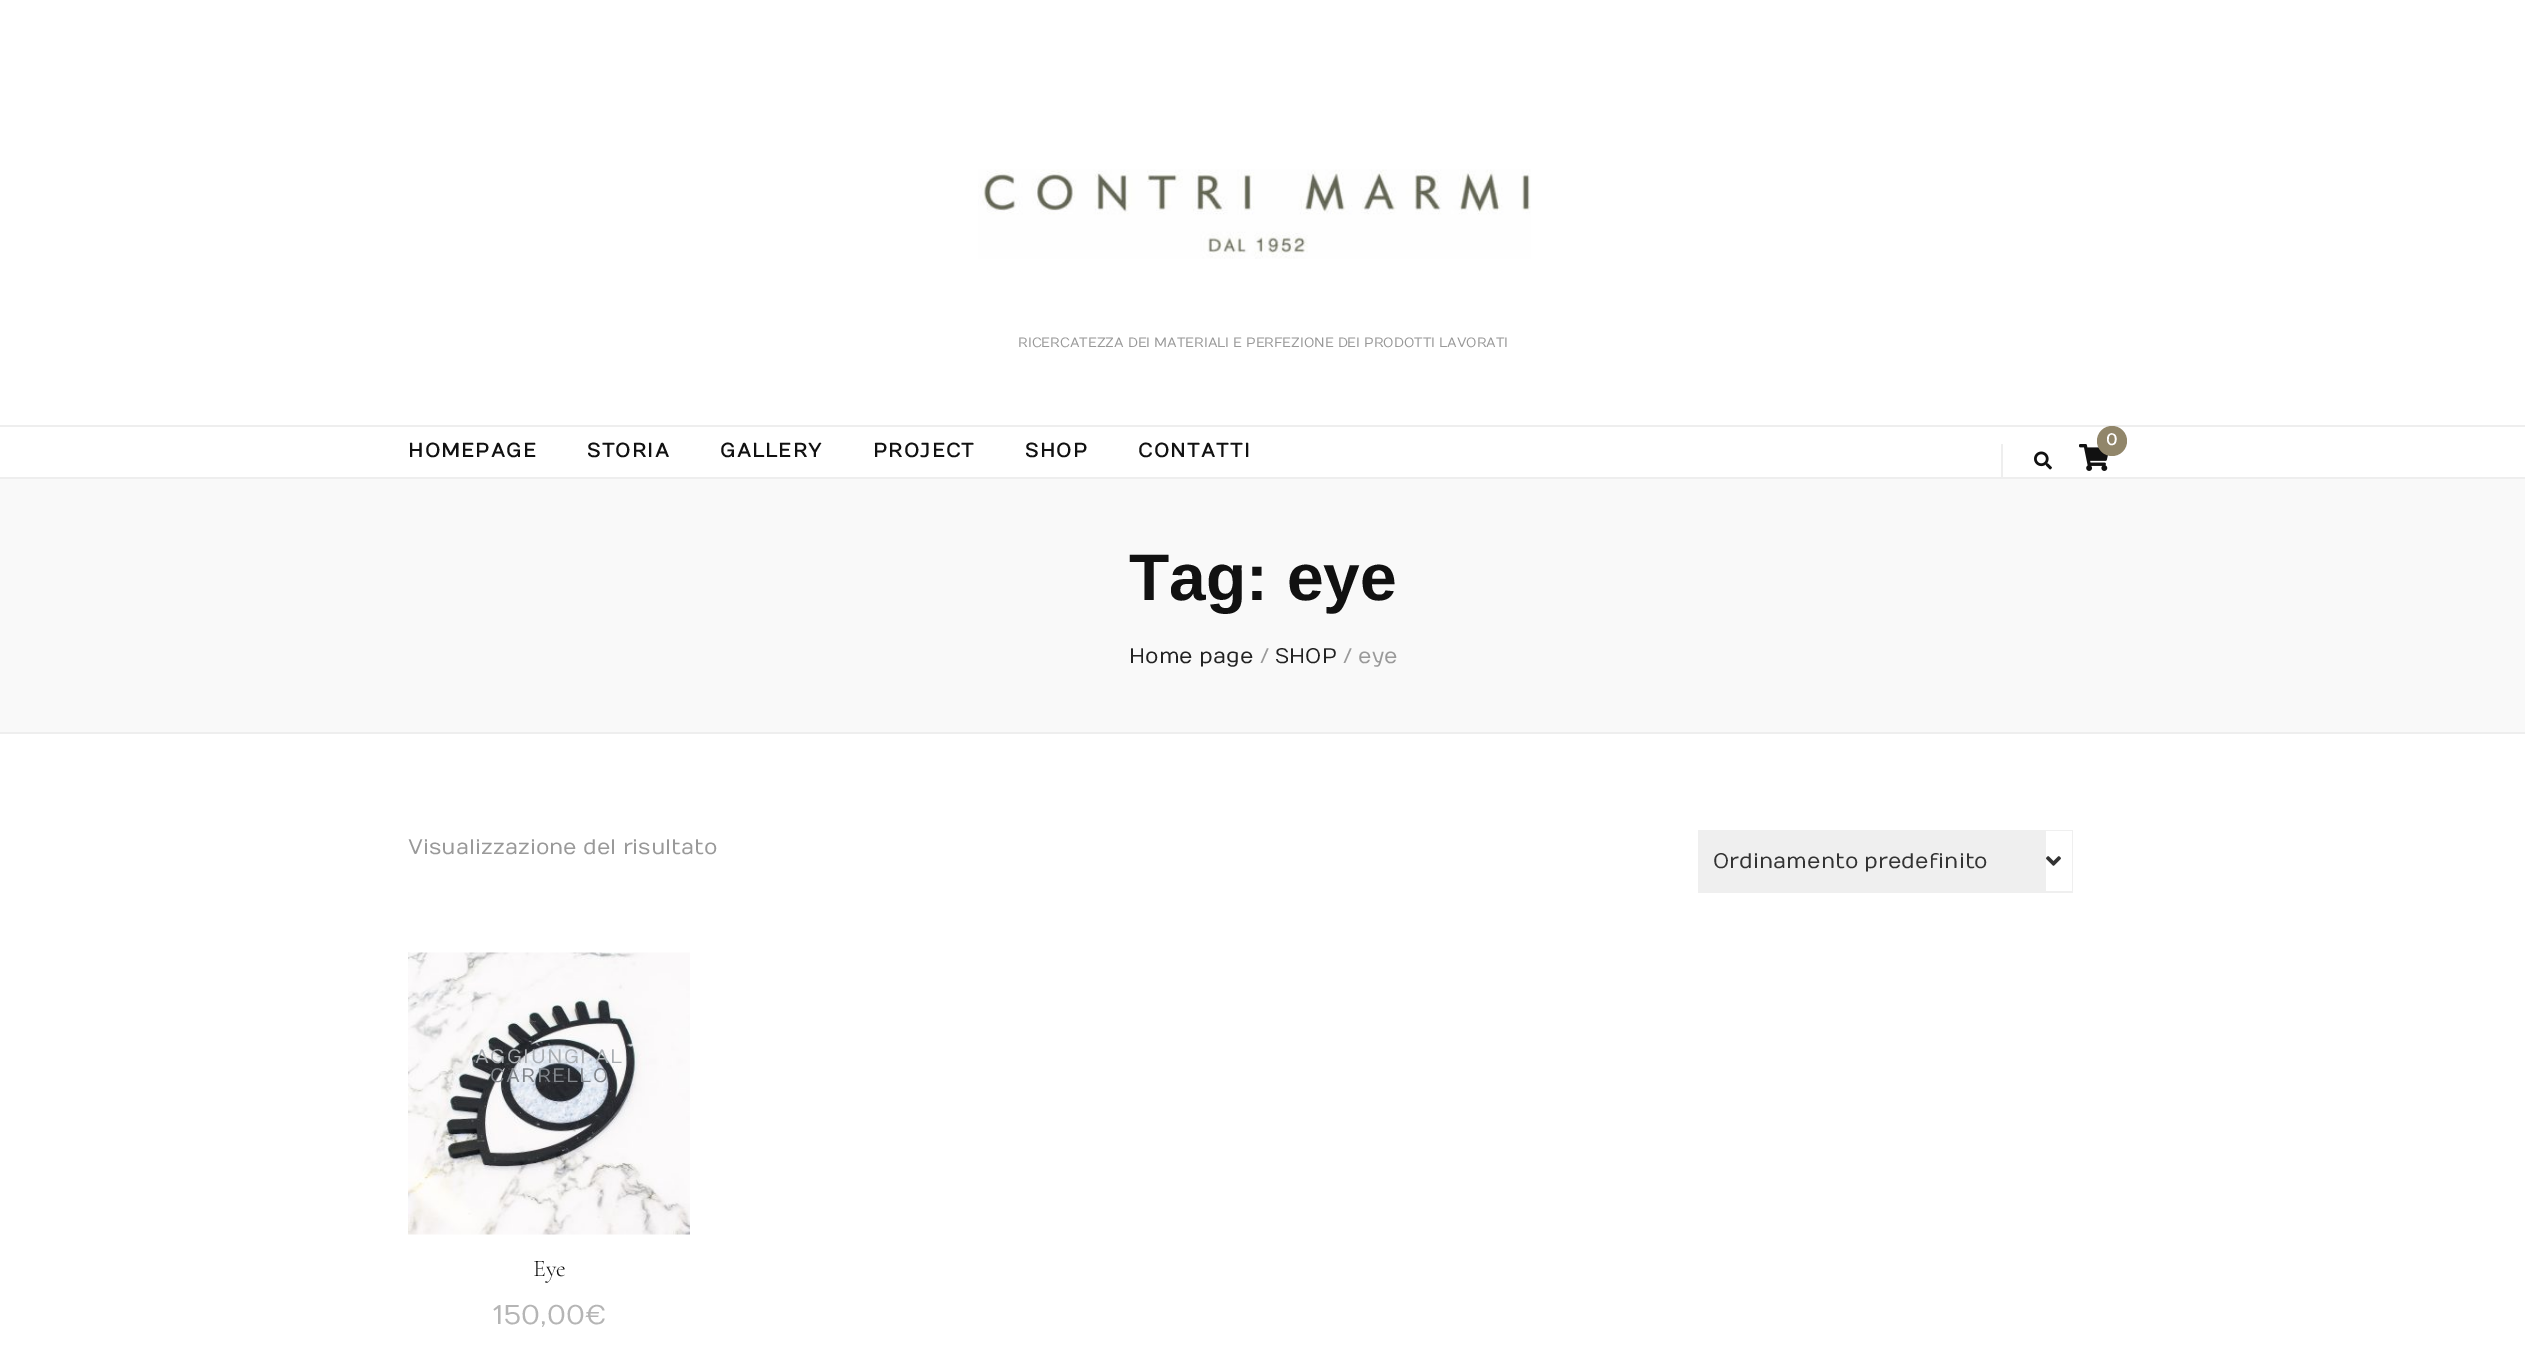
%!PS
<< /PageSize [2525 1348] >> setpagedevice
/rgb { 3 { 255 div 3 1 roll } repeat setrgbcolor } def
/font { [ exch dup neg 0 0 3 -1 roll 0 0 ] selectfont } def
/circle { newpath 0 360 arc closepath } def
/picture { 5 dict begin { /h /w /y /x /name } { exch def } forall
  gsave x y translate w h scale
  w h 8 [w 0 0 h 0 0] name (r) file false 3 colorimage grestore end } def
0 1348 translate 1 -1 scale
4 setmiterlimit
255 255 255 rgb
0 0 2525 1348 rectfill
(img/1.rgb) 978 169 553 90 picture
[
  [0 425 2525 2 238 238 238]
  [0 477 2525 2 238 238 238]
  [2001 444 2 33 238 238 238]
] { aload pop rgb rectfill } forall
(img/2.rgb) 2079 444 29 27 picture
145 134 106 rgb
2112 441 15 circle fill
(img/3.rgb) 2034 451 18 19 picture
[
  [0 479 2525 253 249 249 249]
  [0 732 2525 2 238 238 238]
  [1698 830 375 63 239 239 239]
  [2046 831 26 60 255 255 255]
] { aload pop rgb rectfill } forall
(img/4.rgb) 2046 856 15 10 picture
(img/5.rgb) 408 952 282 283 picture
/Numans-Regular 13.5 font
153 153 153 rgb
1018 347 moveto (RICERCATEZZA DEI MATERIALI E PERFEZIONE DEI PRODOTTI LAVORATI) show
/Numans-Bold 16 font
255 255 255 rgb
2106 445 moveto (0) show
/Numans-Bold 19.5 font
17 17 17 rgb
408 457 moveto 1.5 0 (HOMEPAGE) ashow
587 457 moveto 1.5 0 (STORIA) ashow
720 457 moveto 1.5 0 (GALLERY) ashow
873 457 moveto 1.5 0 (PROJECT) ashow
1025 457 moveto 1.5 0 (SHOP) ashow
1138 457 moveto 1.5 0 (CONTATTI) ashow
/LiberationSans-Bold 66 font
1129 600 moveto (Tag: eye) show
/Numans-Regular 21 font
34 34 34 rgb
1129 663 moveto (Home page) show
153 153 153 rgb
1260 663 moveto (/) show
34 34 34 rgb
1275 663 moveto (SHOP) show
153 153 153 rgb
1343 663 moveto (/ eye) show
408 854 moveto (Visualizzazione del risultato) show
51 51 51 rgb
1713 868 moveto (Ordinamento predefinito) show
/Numans-Regular 19.5 font
169 173 178 rgb
475 1063 moveto 1.5 0 (AGGIUNGI AL) ashow
130 134 140 rgb
490 1082 moveto 1.5 0 (CARRELLO) ashow
/Cormorant-Light 24 font
17 17 17 rgb
533 1276 moveto (Eye) show
/Numans-Regular 27 font
181 181 181 rgb
493 1324 moveto (150,00€) show
showpage
